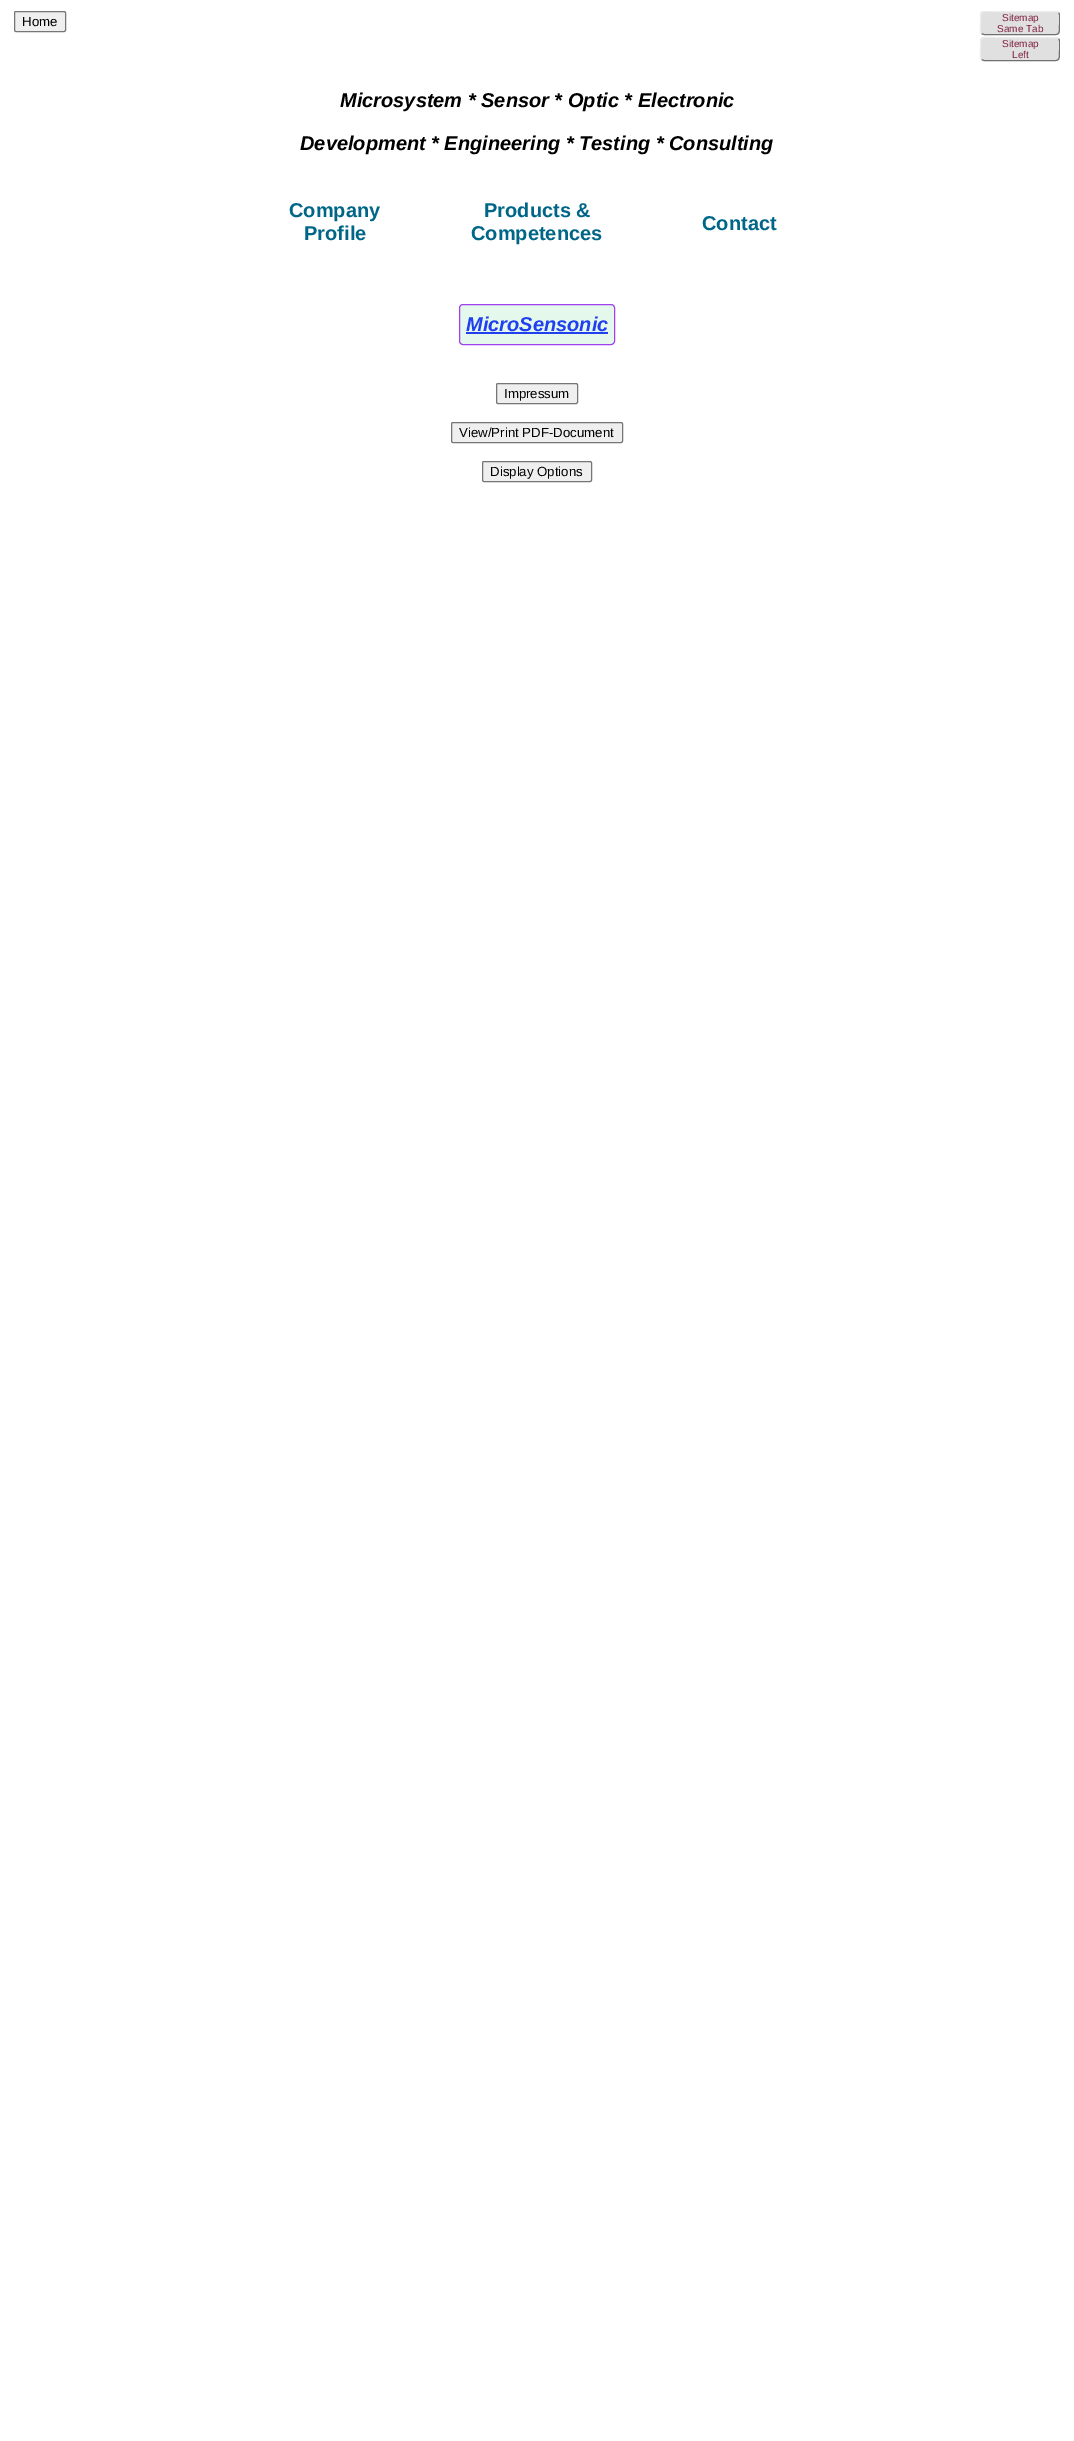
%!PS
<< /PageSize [1074 2441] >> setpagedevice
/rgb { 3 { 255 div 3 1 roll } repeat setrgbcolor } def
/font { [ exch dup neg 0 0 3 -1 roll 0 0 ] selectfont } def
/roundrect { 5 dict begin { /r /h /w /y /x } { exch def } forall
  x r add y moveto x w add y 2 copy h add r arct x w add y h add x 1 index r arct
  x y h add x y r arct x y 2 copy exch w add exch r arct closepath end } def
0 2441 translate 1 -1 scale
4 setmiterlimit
255 255 255 rgb
0 0 1074 2441 rectfill
239 239 239 rgb
14.5 11.5 51 20 1.5 roundrect gsave fill grestore
118 118 118 rgb
stroke
224 224 224 rgb
980 11 80 24 4 roundrect fill
gsave
963 11 97 96 rectclip
112 112 112 rgb
1058.5 12.5 moveto 1060.5 14.5 1059.5 20.5 1059.5 23 curveto 1059.5 37 1060 34.5 1044 34.5 curveto 984 34.5 lineto 981.5 33.5 lineto stroke
236 236 236 rgb
981.5 33.5 moveto 979.5 31.5 980.5 25.5 980.5 23 curveto 980.5 9 980 11.5 996 11.5 curveto 1056 11.5 lineto 1058.5 12.5 lineto stroke
grestore
980 37 80 24 4 roundrect fill
gsave
963 11 97 96 rectclip
112 112 112 rgb
1058.5 38.5 moveto 1060.5 40.5 1059.5 46.5 1059.5 49 curveto 1059.5 63 1060 60.5 1044 60.5 curveto 984 60.5 lineto 981.5 59.5 lineto stroke
grestore
236 236 236 rgb
981.5 59.5 moveto 979.5 57.5 980.5 51.5 980.5 49 curveto 980.5 35 980 37.5 996 37.5 curveto 1056 37.5 lineto 1058.5 38.5 lineto stroke
228 248 236 rgb
459.5 304.5 155 40 3.5 roundrect gsave fill grestore
160 64 240 rgb
stroke
32 64 240 rgb
466 332 142 2 rectfill
239 239 239 rgb
496.5 383.5 81 20 1.5 roundrect gsave fill grestore
118 118 118 rgb
stroke
239 239 239 rgb
451.5 422.5 171 20 1.5 roundrect gsave fill grestore
118 118 118 rgb
stroke
239 239 239 rgb
482.5 461.5 109 20 1.5 roundrect gsave fill grestore
118 118 118 rgb
stroke
/LiberationSans-Regular 13.25 font
0 0 0 rgb
22 26 moveto (Home) show
/LiberationSans-Regular 10 font
128 32 64 rgb
[
  [(Sitemap) 1002 21]
  [(Same Tab) 997 32]
  [(Sitemap) 1002 47]
  [(Left) 1012 58]
] { aload pop moveto show } forall
/LiberationSans-BoldItalic 20 font
0 0 0 rgb
340 107 moveto (Microsystem * Sensor * Optic * Electronic) show
300 150 moveto (Development * Engineering * Testing * Consulting) show
/LiberationSans-Bold 20 font
0 102 136 rgb
[
  [(Company) 289 217]
  [(Profile) 304 240]
  [(Products &) 484 217]
  [(Competences) 471 240]
  [(Contact) 702 230]
] { aload pop moveto show } forall
/LiberationSans-BoldItalic 20 font
32 64 240 rgb
466 331 moveto (MicroSensonic) show
/LiberationSans-Regular 13.25 font
0 0 0 rgb
[
  [(Impressum) 504 398]
  [(View/Print PDF-Document) 459 437]
  [(Display Options) 490 476]
] { aload pop moveto show } forall
showpage
